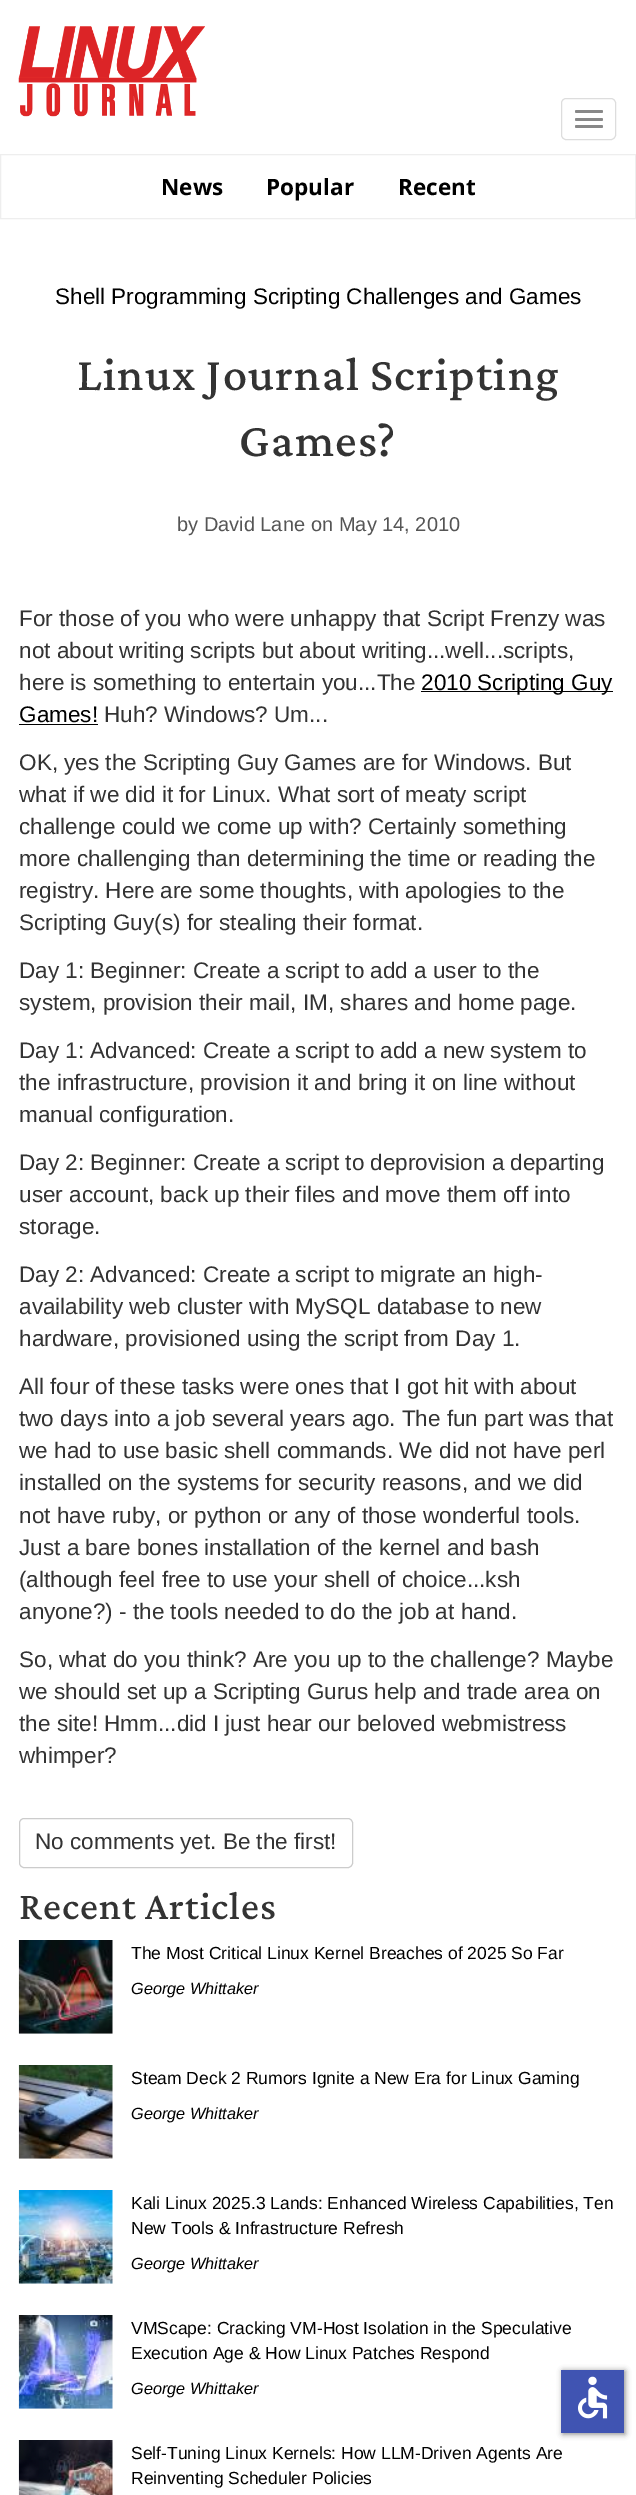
%!PS
<< /PageSize [636 2495] /PageUsesTransparency true >> setpagedevice
/rgb { 3 { 255 div 3 1 roll } repeat setrgbcolor } def
/font { [ exch dup neg 0 0 3 -1 roll 0 0 ] selectfont } def
/alpha { dup .setfillconstantalpha .setstrokeconstantalpha } def
/roundrect { 5 dict begin { /r /h /w /y /x } { exch def } forall
  x r add y moveto x w add y 2 copy h add r arct x w add y h add x 1 index r arct
  x y h add x y r arct x y 2 copy exch w add exch r arct closepath end } def
/shadow { 12 dict begin { /a /b /q /h /w /y /x } { exch def } forall gsave /was 0 def
  9 -2 -9 { dup b mul 4 div /e exch def 1 sub .425 mul 2.718 exch exp 1 add a .99 .min exch div /now exch def
    1 1 now sub 1 was sub div sub alpha /was now def
    w h .min e 2 mul add 0 gt { x e sub y e sub w e 2 mul add h e 2 mul add
      q e add b .6 mul add w h .min 2 div e add .min 0 .max roundrect fill } if } for grestore end } def
/picture { 5 dict begin { /h /w /y /x /name } { exch def } forall
  gsave x y translate w h scale
  w h 8 [w 0 0 h 0 0] name (r) file false 3 colorimage grestore end } def
0 .pushpdf14devicefilter
0 2495 translate 1 -1 scale
4 setmiterlimit
255 255 255 rgb
0 0 636 2495 rectfill
(img/1.rgb) 18 26 187 91 picture
238 238 238 rgb
0.5 154.5 635 64 rectstroke
221 221 221 rgb
561.5 98.5 54 41 4.5 roundrect stroke
136 136 136 rgb
575 110 28 3 1.5 roundrect fill
575 118 28 3 1.5 roundrect fill
575 125 28 3 1.5 roundrect fill
0 0 0 rgb
421 691 192 1 rectfill
19 724 79 1 rectfill
204 204 204 rgb
19.5 1818.5 333 49 4.5 roundrect stroke
(img/2.rgb) 18 1940 95 94 picture
(img/3.rgb) 18 2065 95 94 picture
(img/4.rgb) 18 2190 95 94 picture
(img/5.rgb) 18 2315 95 94 picture
(img/6.rgb) 18 2440 95 55 picture
0 0 0 rgb
563 2371 62 63 0 3 0.5 shadow
64 84 178 rgb
561 2370 63 63 rectfill
(img/7.rgb) 578 2376 30 43 picture
/OpenSans-Bold 22.5 font
0 0 0 rgb
[
  [(News) 161 195]
  [(Popular) 266 195]
  [(Recent) 398 195]
] { aload pop moveto show } forall
/LiberationSans-Regular 22.5 font
55 304 moveto (Shell Programming Scripting Challenges and Games) show
/Lateef-Regular 60 font
51 51 51 rgb
77 390 moveto 1.2 0 (Linux Journal Scripting) ashow
239 456 moveto 1.2 0 (Games?) ashow
/LiberationSans-Regular 20 font
85 85 85 rgb
177 531 moveto (by David Lane) show
311 531 moveto (on May 14, 2010) show
/LiberationSans-Regular 22.5 font
51 51 51 rgb
[
  [(For those of you who were unhappy that Script Frenzy was) 19 626]
  [(not about writing scripts but about writing...well...scripts,) 19 658]
  [(here is something to entertain you...The) 19 690]
] { aload pop moveto show } forall
0 0 0 rgb
421 690 moveto (2010 Scripting Guy) show
19 722 moveto (Games!) show
51 51 51 rgb
[
  [(Huh? Windows? Um...) 104 722]
  [(OK, yes the Scripting Guy Games are for Windows. But) 19 770]
  [(what if we did it for Linux. What sort of meaty script) 19 802]
  [(challenge could we come up with? Certainly something) 19 834]
  [(more challenging than determining the time or reading the) 19 866]
  [(registry. Here are some thoughts, with apologies to the) 19 898]
  [(Scripting Guy\(s\) for stealing their format.) 19 930]
  [(Day 1: Beginner: Create a script to add a user to the) 19 978]
  [(system, provision their mail, IM, shares and home page.) 19 1010]
  [(Day 1: Advanced: Create a script to add a new system to) 19 1058]
  [(the infrastructure, provision it and bring it on line without) 19 1090]
  [(manual configuration.) 19 1122]
  [(Day 2: Beginner: Create a script to deprovision a departing) 19 1170]
  [(user account, back up their files and move them off into) 19 1202]
  [(storage.) 19 1234]
  [(Day 2: Advanced: Create a script to migrate an high-) 19 1282]
  [(availability web cluster with MySQL database to new) 19 1314]
  [(hardware, provisioned using the script from Day 1.) 19 1346]
  [(All four of these tasks were ones that I got hit with about) 19 1394]
  [(two days into a job several years ago. The fun part was that) 19 1426]
  [(we had to use basic shell commands. We did not have perl) 19 1458]
  [(installed on the systems for security reasons, and we did) 19 1490]
  [(not have ruby, or python or any of those wonderful tools.) 19 1523]
  [(Just a bare bones installation of the kernel and bash) 19 1555]
  [(\(although feel free to use your shell of choice...ksh) 19 1587]
  [(anyone?\) - the tools needed to do the job at hand.) 19 1619]
  [(So, what do you think? Are you up to the challenge? Maybe) 19 1667]
  [(we should set up a Scripting Gurus help and trade area on) 19 1699]
  [(the site! Hmm...did I just hear our beloved webmistress) 19 1731]
  [(whimper?) 19 1763]
  [(No comments yet. Be the first!) 35 1849]
] { aload pop moveto show } forall
/Lateef-Regular 50 font
19 1919 moveto 1 0 (Recent Articles) ashow
/LiberationSans-Regular 17.5 font
0 0 0 rgb
131 1959 moveto (The Most Critical Linux Kernel Breaches of 2025 So Far) show
/LiberationSans-Italic 16.25 font
131 1994 moveto (George Whittaker) show
/LiberationSans-Regular 17.5 font
131 2084 moveto (Steam Deck 2 Rumors Ignite a New Era for Linux Gaming) show
/LiberationSans-Italic 16.25 font
131 2119 moveto (George Whittaker) show
/LiberationSans-Regular 17.5 font
131 2209 moveto (Kali Linux 2025.3 Lands: Enhanced Wireless Capabilities, Ten) show
131 2234 moveto (New Tools & Infrastructure Refresh) show
/LiberationSans-Italic 16.25 font
131 2269 moveto (George Whittaker) show
/LiberationSans-Regular 17.5 font
131 2334 moveto (VMScape: Cracking VM-Host Isolation in the Speculative) show
131 2359 moveto (Execution Age & How Linux Patches Respond) show
/LiberationSans-Italic 16.25 font
131 2394 moveto (George Whittaker) show
/LiberationSans-Regular 17.5 font
131 2459 moveto (Self-Tuning Linux Kernels: How LLM-Driven Agents Are) show
131 2484 moveto (Reinventing Scheduler Policies) show
.poppdf14devicefilter showpage
